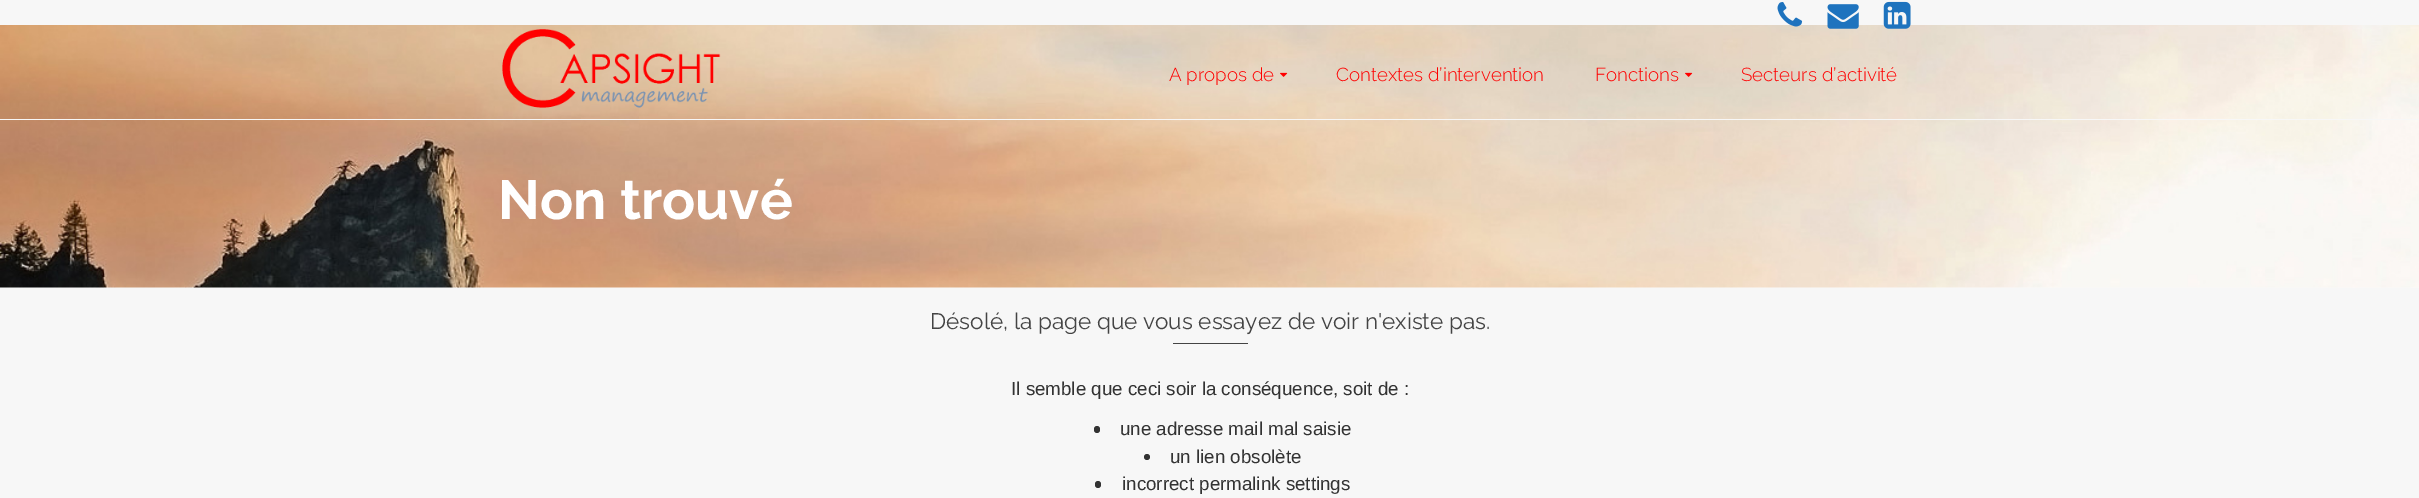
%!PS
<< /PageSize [2419 498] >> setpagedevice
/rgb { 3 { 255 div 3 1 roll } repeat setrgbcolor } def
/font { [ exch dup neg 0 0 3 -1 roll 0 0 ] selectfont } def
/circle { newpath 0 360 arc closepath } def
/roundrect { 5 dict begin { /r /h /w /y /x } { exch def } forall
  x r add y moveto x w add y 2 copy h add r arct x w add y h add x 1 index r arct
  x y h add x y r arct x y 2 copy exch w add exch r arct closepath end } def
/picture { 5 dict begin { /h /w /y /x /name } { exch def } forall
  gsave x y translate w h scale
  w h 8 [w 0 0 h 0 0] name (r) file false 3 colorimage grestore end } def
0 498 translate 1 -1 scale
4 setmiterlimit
247 247 247 rgb
0 0 2419 498 rectfill
(img/7.rgb) 0 25 2419 263 picture
0 119 2419 1 rectfill
(img/1.rgb) 1777 2 26 25 picture
(img/2.rgb) 1827 4 32 25 picture
(img/3.rgb) 1883 1 28 28 picture
(img/4.rgb) 502 29 219 79 picture
(img/5.rgb) 1280 72 8 5 picture
(img/6.rgb) 1685 72 8 5 picture
68 68 68 rgb
1173 343 75 1 rectfill
51 51 51 rgb
1094 426 6 7 3 roundrect fill
1147 457 3 circle fill
1095 481 6 7 3 roundrect fill
/Raleway-Light 18.75 font
255 0 0 rgb
[
  [(A propos de) 1169 81]
  [(Contextes d’intervention) 1336 81]
  [(Fonctions) 1595 81]
  [(Secteurs d’activité) 1741 81]
] { aload pop moveto show } forall
/Raleway-Bold 55 font
255 255 255 rgb
498 219 moveto (Non trouvé) show
/Raleway-Regular 22.5 font
68 68 68 rgb
930 329 moveto (Désolé, la page que vous essayez de voir n'existe pas.) show
/LiberationSans-Regular 18.75 font
51 51 51 rgb
[
  [(Il semble que ceci soir la conséquence, soit de :) 1011 395]
  [(une adresse mail mal saisie) 1120 435]
  [(un lien obsolète) 1170 463]
  [(incorrect permalink settings) 1122 490]
] { aload pop moveto show } forall
showpage
